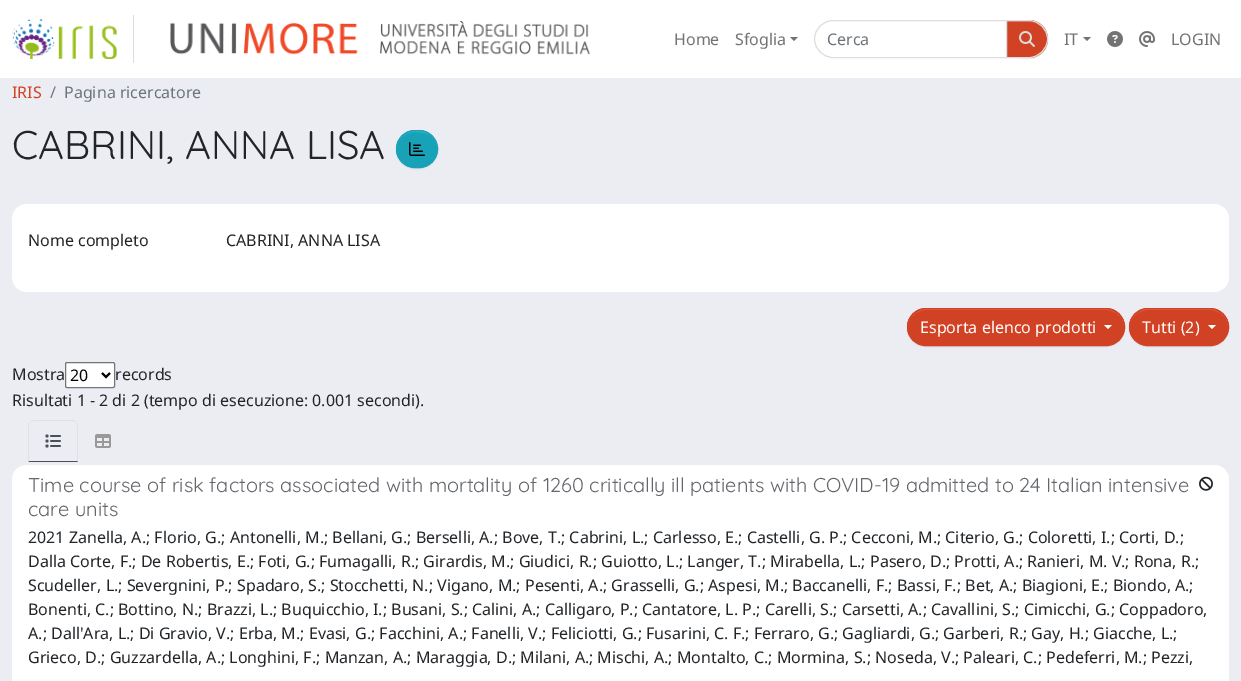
%!PS
<< /PageSize [1241 681] /PageUsesTransparency true >> setpagedevice
/rgb { 3 { 255 div 3 1 roll } repeat setrgbcolor } def
/font { [ exch dup neg 0 0 3 -1 roll 0 0 ] selectfont } def
/alpha { dup .setfillconstantalpha .setstrokeconstantalpha } def
/roundrect { 5 dict begin { /r /h /w /y /x } { exch def } forall
  x r add y moveto x w add y 2 copy h add r arct x w add y h add x 1 index r arct
  x y h add x y r arct x y 2 copy exch w add exch r arct closepath end } def
/shadow { 12 dict begin { /a /b /q /h /w /y /x } { exch def } forall gsave /was 0 def
  9 -2 -9 { dup b mul 4 div /e exch def 1 sub .425 mul 2.718 exch exp 1 add a .99 .min exch div /now exch def
    1 1 now sub 1 was sub div sub alpha /was now def
    w h .min e 2 mul add 0 gt { x e sub y e sub w e 2 mul add h e 2 mul add
      q e add b .6 mul add w h .min 2 div e add .min 0 .max roundrect fill } if } for grestore end } def
/picture { 5 dict begin { /h /w /y /x /name } { exch def } forall
  gsave x y translate w h scale
  w h 8 [w 0 0 h 0 0] name (r) file false 3 colorimage grestore end } def
0 .pushpdf14devicefilter
0 681 translate 1 -1 scale
4 setmiterlimit
236 237 242 rgb
0 0 1241 681 rectfill
255 255 255 rgb
0 0 1241 78 rectfill
221 221 221 rgb
133 15 1 48 rectfill
(img/1.rgb) 12 19 105 40 picture
(img/2.rgb) 170 21 421 34 picture
115 115 115 rgb
790 37 moveto 798 37 lineto 794 41 lineto closepath fill
221 221 221 rgb
833 20.5 moveto 1006.5 20.5 lineto 1006.5 57.5 lineto 833 57.5 lineto 823 57.5 814.5 49 814.5 39 curveto 814.5 29 823 20.5 833 20.5 curveto closepath stroke
0 0 0 rgb
1006 21 42 38 19 0.5 0.07 shadow
209 65 36 rgb
1006 20 moveto 1029 20 lineto 1039.5 20 1048 28.5 1048 39 curveto 1048 49.5 1039.5 58 1029 58 curveto 1006 58 lineto closepath fill
216 94 69 rgb
1007 22 moveto 1029 22 lineto 1039 22 1047 30 1047 39 curveto 1047 31 1041 23 1033 21 curveto 1007 21 lineto closepath fill
221 221 221 rgb
1006.5 20.5 moveto 1029 20.5 lineto 1039 20.5 1047.5 29 1047.5 39 curveto 1047.5 49 1039 57.5 1029 57.5 curveto 1006.5 57.5 lineto closepath stroke
(img/3.rgb) 1019 31 16 16 picture
115 115 115 rgb
1083 37 moveto 1091 37 lineto 1087 41 lineto closepath fill
(img/4.rgb) 1107 31 16 16 picture
(img/5.rgb) 1139 31 16 16 picture
0 0 0 rgb
396 131 42 38 19 0.5 0.07 shadow
23 162 184 rgb
396 130 42 38 19 roundrect fill
58 176 195 rgb
415 132 moveto 425 132 434 134 437 146 curveto 433 123 394 127 397 151 curveto 396 142 403 132 415 132 curveto closepath fill
23 162 184 rgb
396.5 130.5 41 37 18.5 roundrect stroke
(img/6.rgb) 409 142 16 14 picture
255 255 255 rgb
12 204 1217 88 15 roundrect fill
0 0 0 rgb
907 309 218 38 19 0.5 0.07 shadow
209 65 36 rgb
907 308 218 38 19 roundrect fill
0.15 alpha
255 255 255 rgb
926 310 moveto 1106 310 lineto 1116 310 1124 318 1124 327 curveto 1125 302 1090 309 1076 309 curveto 956 309 lineto 942 309 907 302 908 327 curveto 908 318 916 310 926 310 curveto closepath fill
1 alpha
209 65 36 rgb
907.5 308.5 217 37 18.5 roundrect stroke
255 255 255 rgb
1104 325 moveto 1112 325 lineto 1108 329 lineto closepath fill
0 0 0 rgb
1129 309 100 38 19 0.5 0.07 shadow
209 65 36 rgb
1129 308 100 38 19 roundrect fill
216 94 69 rgb
1148 310 moveto 1210 310 lineto 1220 310 1228 318 1228 327 curveto 1228 319 1222 311 1214 309 curveto 1200 309 lineto 1144 309 lineto 1136 311 1130 319 1130 327 curveto 1130 318 1138 310 1148 310 curveto closepath fill
209 65 36 rgb
1129.5 308.5 99 37 18.5 roundrect stroke
255 255 255 rgb
1208 325 moveto 1216 325 lineto 1212 329 lineto closepath fill
65.5 362.5 49 25 1.5 roundrect gsave fill grestore
118 118 118 rgb
stroke
0 0 0 rgb
2 setlinewidth
102 373 moveto 106 377 lineto 110 373 lineto stroke
222 226 230 rgb
34 420 moveto 32 420 31 421 30 422 curveto 31 422 32 421 34 421 curveto 72 421 lineto 74 421 75 422 76 422 curveto 75 421 74 420 72 420 curveto closepath 78 462 moveto 78 426 lineto 78 424 77 423 76 422 curveto 76 423 77 424 77 426 curveto 77 461 lineto closepath fill
73 80 87 rgb
78 462 moveto 77 461 lineto 29 461 lineto 28 462 lineto closepath fill
222 226 230 rgb
28 462 moveto 29 461 lineto 29 426 lineto 29 424 30 423 30 422 curveto 29 423 28 424 28 426 curveto closepath fill
(img/7.rgb) 45 434 16 14 picture
(img/8.rgb) 95 434 16 14 picture
255 255 255 rgb
27 465 moveto 1214 465 lineto 1222.5 465 1229 471.5 1229 480 curveto 1229 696 lineto 12 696 lineto 12 480 lineto 12 471.5 18.5 465 27 465 curveto closepath fill
(img/9.rgb) 1199 476 14 15 picture
/NotoSans-Regular 16 font
115 115 115 rgb
674 45 moveto (Home) show
735 45 moveto (Sfoglia) show
108 117 125 rgb
827 45 moveto (Cerca) show
115 115 115 rgb
1064 45 moveto (IT) show
1171 45 moveto (LOGIN) show
209 65 36 rgb
12 98 moveto (IRIS) show
108 117 125 rgb
50 98 moveto (/) show
64 98 moveto (Pagina ricercatore) show
/Quicksand-Light 40 font
33 37 41 rgb
12 159 moveto (CABRINI, ANNA LISA) show
/NotoSans-Regular 16 font
28 246 moveto (Nome completo) show
226 246 moveto (CABRINI, ANNA LISA) show
255 255 255 rgb
920 333 moveto (Esporta elenco prodotti) show
1142 333 moveto (Tutti \(2\)) show
33 37 41 rgb
12 380 moveto (Mostra) show
0 0 0 rgb
70 381 moveto (20) show
33 37 41 rgb
115 380 moveto (records) show
12 406 moveto (Risultati 1 - 2 di 2 \(tempo di esecuzione: 0.001 secondi\).) show
/Quicksand-Light 20 font
99 102 106 rgb
28 492 moveto (Time course of risk factors associated with mortality of 1260 critically ill patients with COVID-19 admitted to 24 Italian intensive) show
28 516 moveto (care units) show
/NotoSans-Regular 16 font
33 37 41 rgb
[
  [(2021 Zanella, A.; Florio, G.; Antonelli, M.; Bellani, G.; Berselli, A.; Bove, T.; Cabrini, L.; Carlesso, E.; Castelli, G. P.; Cecconi, M.; Citerio, G.; Coloretti, I.; Corti, D.;) 28 543]
  [(Dalla Corte, F.; De Robertis, E.; Foti, G.; Fumagalli, R.; Girardis, M.; Giudici, R.; Guiotto, L.; Langer, T.; Mirabella, L.; Pasero, D.; Protti, A.; Ranieri, M. V.; Rona, R.;) 28 567]
  [(Scudeller, L.; Severgnini, P.; Spadaro, S.; Stocchetti, N.; Vigano, M.; Pesenti, A.; Grasselli, G.; Aspesi, M.; Baccanelli, F.; Bassi, F.; Bet, A.; Biagioni, E.; Biondo, A.;) 28 591]
  [(Bonenti, C.; Bottino, N.; Brazzi, L.; Buquicchio, I.; Busani, S.; Calini, A.; Calligaro, P.; Cantatore, L. P.; Carelli, S.; Carsetti, A.; Cavallini, S.; Cimicchi, G.; Coppadoro,) 28 615]
  [(A.; Dall'Ara, L.; Di Gravio, V.; Erba, M.; Evasi, G.; Facchini, A.; Fanelli, V.; Feliciotti, G.; Fusarini, C. F.; Ferraro, G.; Gagliardi, G.; Garberi, R.; Gay, H.; Giacche, L.;) 28 639]
  [(Grieco, D.; Guzzardella, A.; Longhini, F.; Manzan, A.; Maraggia, D.; Milani, A.; Mischi, A.; Montalto, C.; Mormina, S.; Noseda, V.; Paleari, C.; Pedeferri, M.; Pezzi,) 28 663]
] { aload pop moveto show } forall
.poppdf14devicefilter showpage
